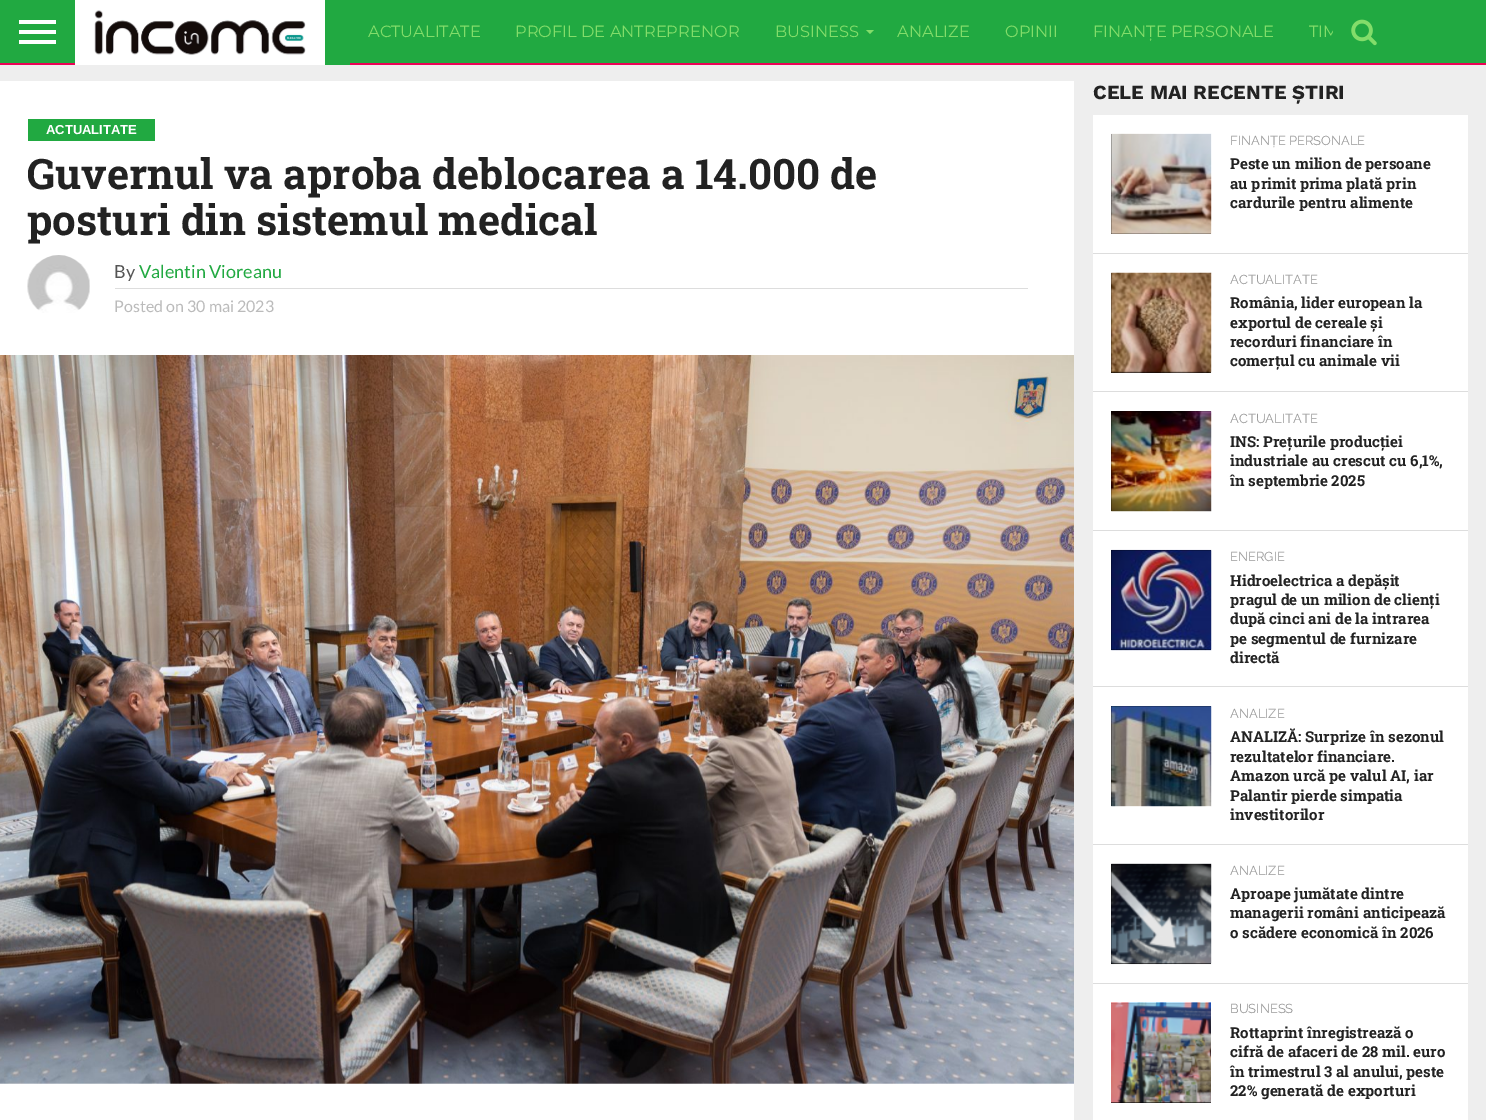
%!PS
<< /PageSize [1486 1120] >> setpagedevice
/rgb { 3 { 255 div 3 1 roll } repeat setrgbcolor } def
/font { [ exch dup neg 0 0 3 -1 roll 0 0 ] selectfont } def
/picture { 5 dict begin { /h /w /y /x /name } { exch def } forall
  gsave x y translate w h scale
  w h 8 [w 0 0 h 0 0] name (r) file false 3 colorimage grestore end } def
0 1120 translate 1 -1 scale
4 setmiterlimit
238 238 238 rgb
0 0 1486 1120 rectfill
[
  [0 63 1486 2 235 2 84]
  [0 0 75 63 33 169 65]
  [19 20 37 4 255 255 255]
  [19 30 37 4 255 255 255]
  [19 40 37 4 255 255 255]
  [325 0 25 65 33 169 65]
] { aload pop rgb rectfill } forall
(img/1.rgb) 75 0 250 65 picture
350 0 983 63 rectfill
131 221 106 rgb
866 30 moveto 874 30 lineto 870 34 lineto closepath fill
255 255 255 rgb
0 81 1074 1039 rectfill
33 169 65 rgb
28 119 127 22 rectfill
(img/3.rgb) 27 255 63 58 picture
221 221 221 rgb
115 288 913 1 rectfill
(img/4.rgb) 0 355 1074 729 picture
255 255 255 rgb
1093 115 375 1005 rectfill
0 0 0 rgb
1111 134 100 100 rectfill
(img/5.rgb) 1111 133 101 101 picture
221 221 221 rgb
1093 253 375 1 rectfill
0 0 0 rgb
1111 273 100 100 rectfill
(img/6.rgb) 1111 272 101 101 picture
221 221 221 rgb
1093 391 375 1 rectfill
0 0 0 rgb
1111 411 100 100 rectfill
(img/7.rgb) 1111 411 101 101 picture
221 221 221 rgb
1093 530 375 1 rectfill
0 0 0 rgb
1111 550 100 100 rectfill
(img/8.rgb) 1111 549 101 102 picture
221 221 221 rgb
1093 686 375 1 rectfill
0 0 0 rgb
1111 706 100 100 rectfill
(img/9.rgb) 1111 706 101 101 picture
221 221 221 rgb
1093 844 375 1 rectfill
0 0 0 rgb
1111 864 100 100 rectfill
(img/10.rgb) 1111 863 101 102 picture
221 221 221 rgb
1093 983 375 1 rectfill
0 0 0 rgb
1111 1003 100 100 rectfill
(img/11.rgb) 1111 1002 100 101 picture
/Montserrat-Regular 16.25 font
131 221 106 rgb
[
  [(ACTUALITATE) 368 37]
  [(PROFIL DE ANTREPRENOR) 515 37]
  [(BUSINESS) 775 37]
  [(ANALIZE) 897 37]
  [(OPINII) 1005 37]
  [(FINANȚE PERSONALE) 1093 37]
  [(TIM) 1309 37]
] { aload pop moveto show } forall
33 169 65 rgb
1333 0 153 63 rectfill
(img/2.rgb) 1351 19 26 27 picture
/LiberationSans-Bold 13 font
255 255 255 rgb
46 134 moveto (ACTUALITATE) show
/RobotoSlab-Bold 42 font
34 34 34 rgb
27 189 moveto (Guvernul va aproba deblocarea a 14.000 de) show
27 235 moveto (posturi din sistemul medical) show
/Lato-Regular 18 font
85 85 85 rgb
114 278 moveto (By) show
33 169 65 rgb
139 278 moveto (Valentin Vioreanu) show
/Lato-Regular 16 font
187 187 187 rgb
114 312 moveto (Posted on 30 mai 2023) show
/WorkSans-Bold 20 font
34 34 34 rgb
1093 99 moveto (CELE MAI RECENTE ȘTIRI) show
/Raleway-Regular 13 font
153 153 153 rgb
1230 145 moveto (FINANȚE PERSONALE) show
/RobotoSlab-Bold 15 font
34 34 34 rgb
[
  [(Peste un milion de persoane) 1230 169]
  [(au primit prima plată prin) 1230 189]
  [(cardurile pentru alimente) 1230 208]
] { aload pop moveto show } forall
/Raleway-Regular 13 font
153 153 153 rgb
1230 284 moveto (ACTUALITATE) show
/RobotoSlab-Bold 15 font
34 34 34 rgb
[
  [(România, lider european la) 1230 308]
  [(exportul de cereale și) 1230 328]
  [(recorduri financiare în) 1230 347]
  [(comerțul cu animale vii) 1230 366]
] { aload pop moveto show } forall
/Raleway-Regular 13 font
153 153 153 rgb
1230 423 moveto (ACTUALITATE) show
/RobotoSlab-Bold 15 font
34 34 34 rgb
[
  [(INS: Prețurile producției) 1230 447]
  [(industriale au crescut cu 6,1%,) 1230 466]
  [(în septembrie 2025) 1230 486]
] { aload pop moveto show } forall
/Raleway-Regular 13 font
153 153 153 rgb
1230 561 moveto (ENERGIE) show
/RobotoSlab-Bold 15 font
34 34 34 rgb
[
  [(Hidroelectrica a depășit) 1230 586]
  [(pragul de un milion de clienți) 1230 605]
  [(după cinci ani de la intrarea) 1230 624]
  [(pe segmentul de furnizare) 1230 644]
  [(directă) 1230 663]
] { aload pop moveto show } forall
/Raleway-Regular 13 font
153 153 153 rgb
1230 718 moveto (ANALIZE) show
/RobotoSlab-Bold 15 font
34 34 34 rgb
[
  [(ANALIZĂ: Surprize în sezonul) 1230 742]
  [(rezultatelor financiare.) 1230 762]
  [(Amazon urcă pe valul AI, iar) 1230 781]
  [(Palantir pierde simpatia) 1230 801]
  [(investitorilor) 1230 820]
] { aload pop moveto show } forall
/Raleway-Regular 13 font
153 153 153 rgb
1230 875 moveto (ANALIZE) show
/RobotoSlab-Bold 15 font
34 34 34 rgb
[
  [(Aproape jumătate dintre) 1230 899]
  [(managerii români anticipează) 1230 918]
  [(o scădere economică în 2026) 1230 938]
] { aload pop moveto show } forall
/Raleway-Regular 13 font
153 153 153 rgb
1230 1013 moveto (BUSINESS) show
/RobotoSlab-Bold 15 font
34 34 34 rgb
[
  [(Rottaprint înregistrează o) 1230 1038]
  [(cifră de afaceri de 28 mil. euro) 1230 1057]
  [(în trimestrul 3 al anului, peste) 1230 1077]
  [(22% generată de exporturi) 1230 1096]
] { aload pop moveto show } forall
showpage
